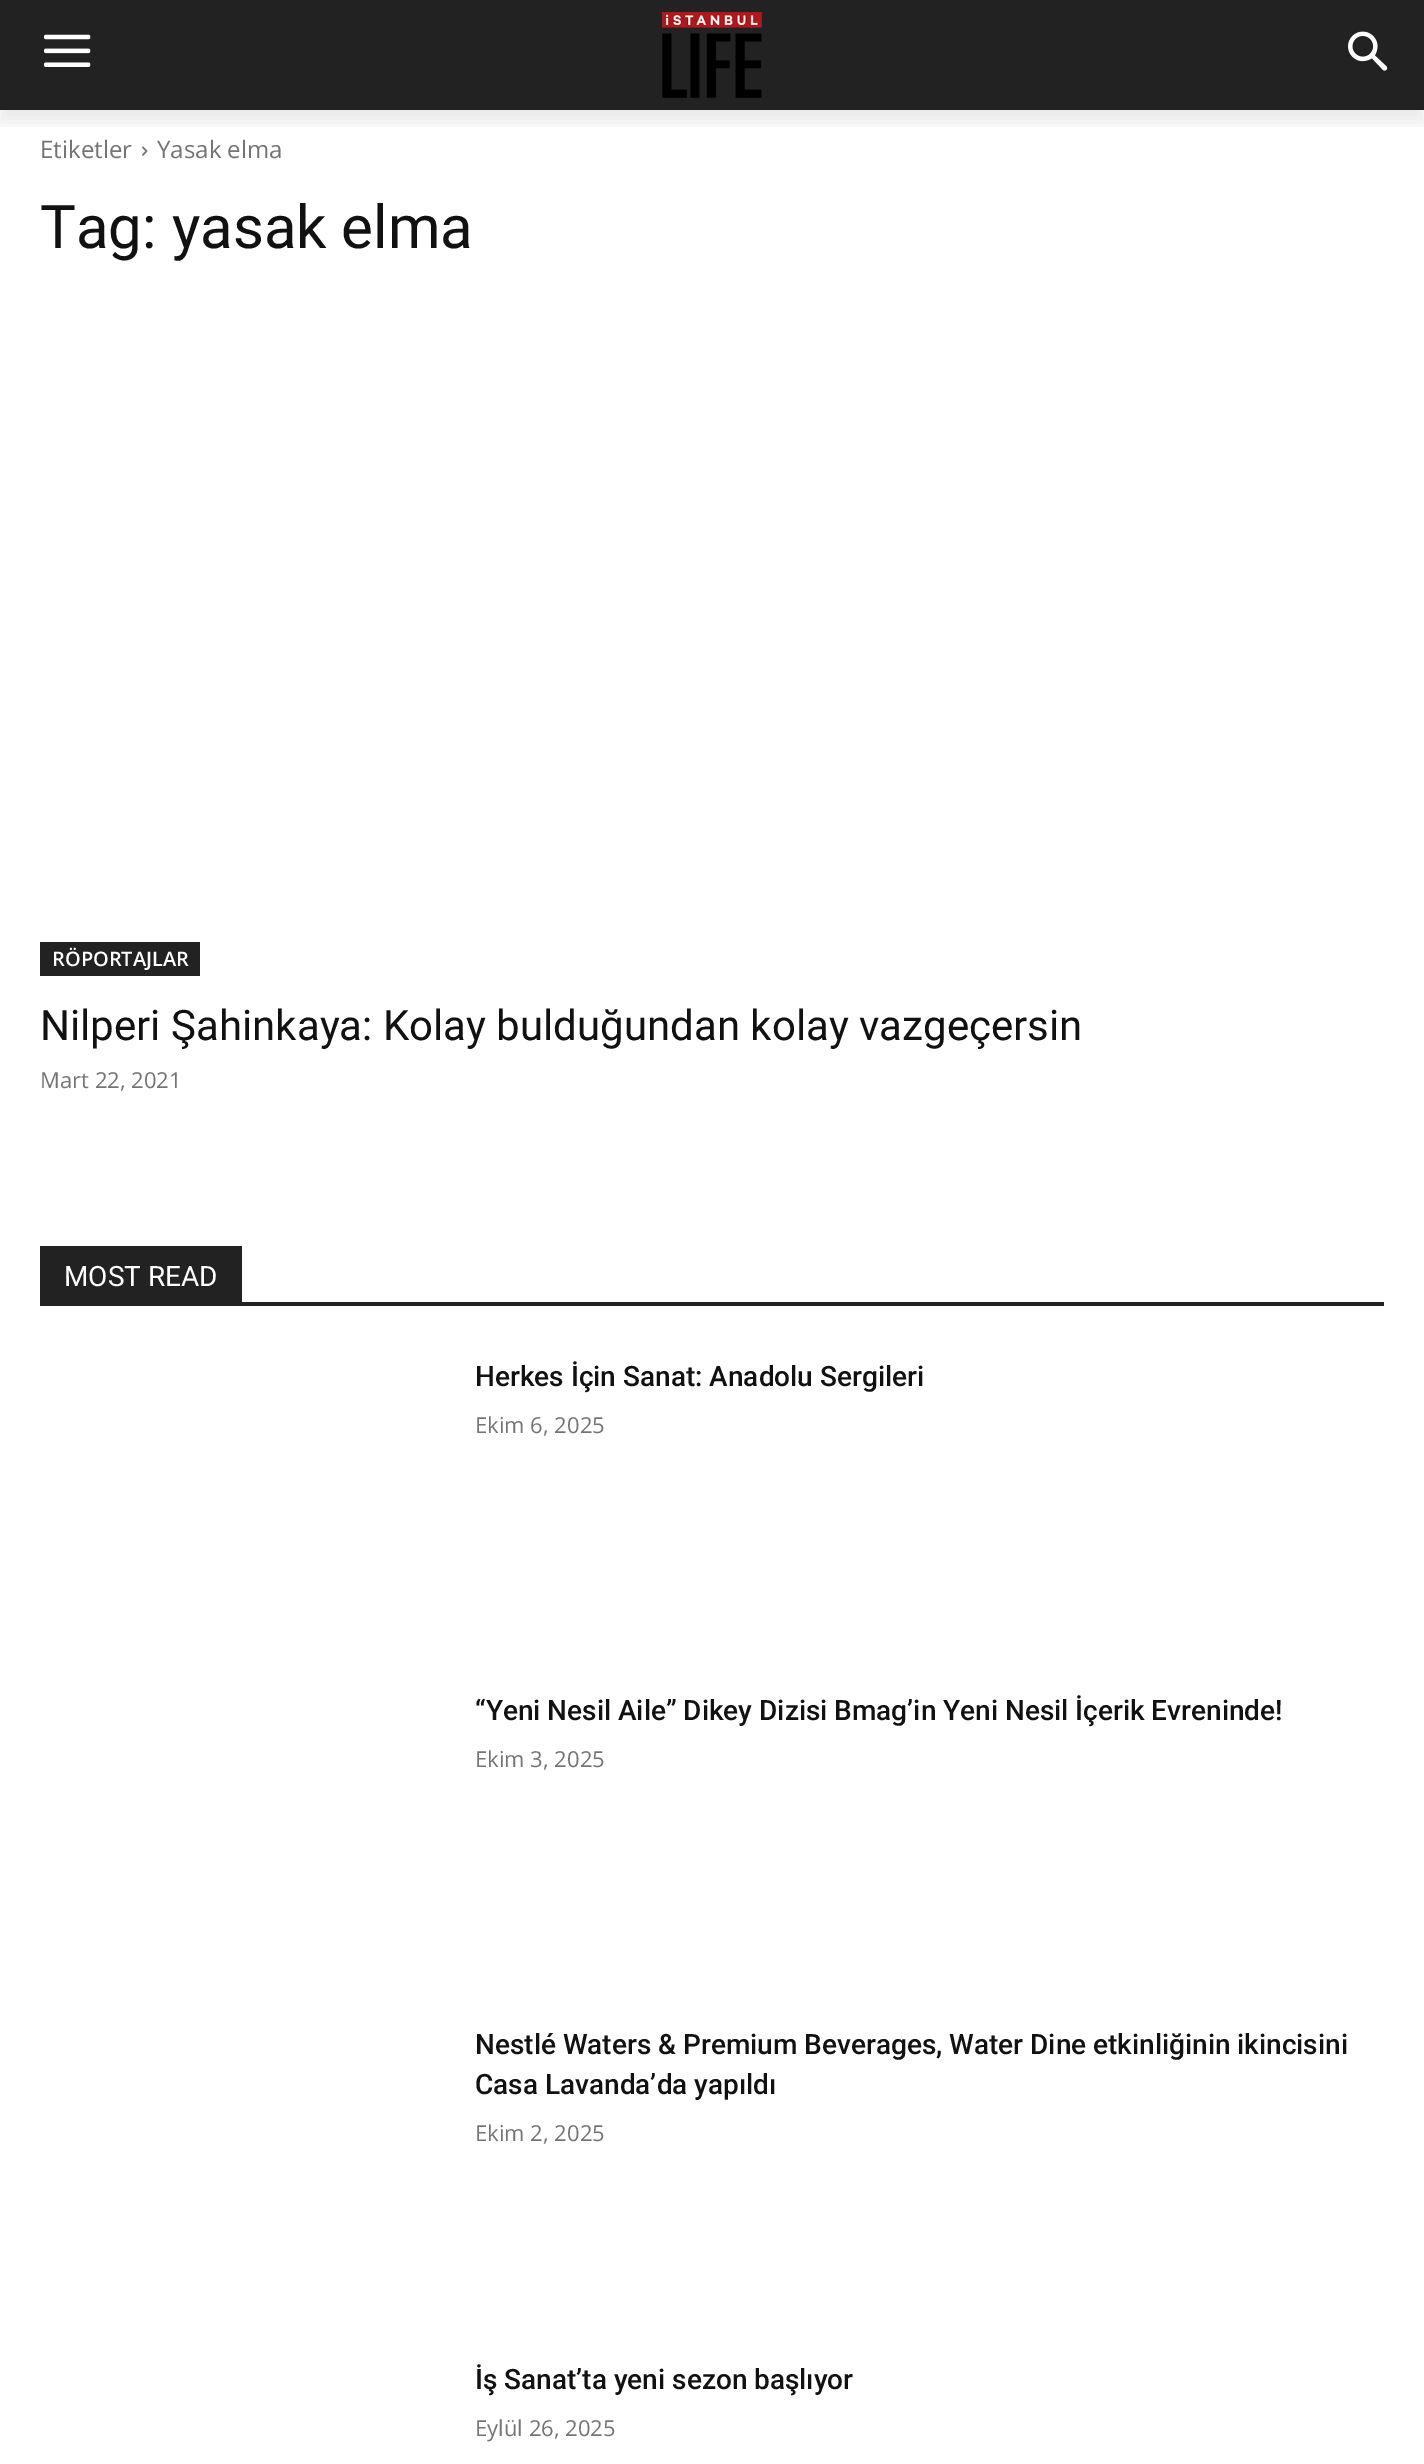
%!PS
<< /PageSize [1424 2464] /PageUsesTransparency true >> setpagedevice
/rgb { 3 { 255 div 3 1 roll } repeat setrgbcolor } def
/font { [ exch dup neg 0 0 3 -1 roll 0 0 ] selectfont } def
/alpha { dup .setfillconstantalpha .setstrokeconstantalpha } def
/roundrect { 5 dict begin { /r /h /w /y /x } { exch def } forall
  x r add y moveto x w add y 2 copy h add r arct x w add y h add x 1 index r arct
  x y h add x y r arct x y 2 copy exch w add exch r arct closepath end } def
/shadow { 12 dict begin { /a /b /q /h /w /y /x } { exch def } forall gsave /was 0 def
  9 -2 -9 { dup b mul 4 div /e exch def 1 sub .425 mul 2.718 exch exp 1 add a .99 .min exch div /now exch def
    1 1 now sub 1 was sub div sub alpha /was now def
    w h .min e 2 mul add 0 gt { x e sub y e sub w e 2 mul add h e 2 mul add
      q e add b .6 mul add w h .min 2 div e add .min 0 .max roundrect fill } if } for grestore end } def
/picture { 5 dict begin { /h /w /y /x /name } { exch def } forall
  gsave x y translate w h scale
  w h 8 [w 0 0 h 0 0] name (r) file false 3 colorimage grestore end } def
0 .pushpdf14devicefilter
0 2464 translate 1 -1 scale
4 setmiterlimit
255 255 255 rgb
0 0 1424 2464 rectfill
34 34 34 rgb
0 0 1424 110 rectfill
(img/1.rgb) 44 34 47 33 picture
(img/2.rgb) 662 12 100 86 picture
(img/3.rgb) 1348 31 40 40 picture
(img/4.rgb) 142 146 6 10 picture
gsave
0 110 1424 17 rectclip
0 0 0 rgb
0 12 1424 110 0 8 0.08 shadow
grestore
[
  [40 942 160 34 34 34 34]
  [40 1302 1344 4 34 34 34]
  [40 1246 202 56 34 34 34]
] { aload pop rgb rectfill } forall
/OpenSans-Regular 24 font
116 116 116 rgb
40 158 moveto (Etiketler) show
157 158 moveto (Yasak elma) show
/Roboto-Regular 60 font
17 17 17 rgb
40 248 moveto (Tag: yasak elma) show
/OpenSans-SemiBold 20 font
255 255 255 rgb
52 966 moveto (RÖPORTAJLAR) show
/Roboto-Regular 42 font
17 17 17 rgb
40 1040 moveto (Nilperi Şahinkaya: Kolay bulduğundan kolay vazgeçersin) show
/OpenSans-Regular 22 font
116 116 116 rgb
40 1088 moveto (Mart 22, 2021) show
/Roboto-Regular 28 font
255 255 255 rgb
64 1286 moveto (MOST READ) show
/Roboto-Medium 28 font
17 17 17 rgb
475 1386 moveto (Herkes İçin Sanat: Anadolu Sergileri) show
/OpenSans-Regular 22 font
116 116 116 rgb
475 1433 moveto (Ekim 6, 2025) show
/Roboto-Medium 28 font
17 17 17 rgb
475 1720 moveto (“Yeni Nesil Aile” Dikey Dizisi Bmag’in Yeni Nesil İçerik Evreninde!) show
/OpenSans-Regular 22 font
116 116 116 rgb
475 1767 moveto (Ekim 3, 2025) show
/Roboto-Medium 28 font
17 17 17 rgb
475 2054 moveto (Nestlé Waters & Premium Beverages, Water Dine etkinliğinin ikincisini) show
475 2094 moveto (Casa Lavanda’da yapıldı) show
/OpenSans-Regular 22 font
116 116 116 rgb
475 2141 moveto (Ekim 2, 2025) show
/Roboto-Medium 28 font
17 17 17 rgb
475 2389 moveto (İş Sanat’ta yeni sezon başlıyor) show
/OpenSans-Regular 22 font
116 116 116 rgb
475 2436 moveto (Eylül 26, 2025) show
.poppdf14devicefilter showpage
